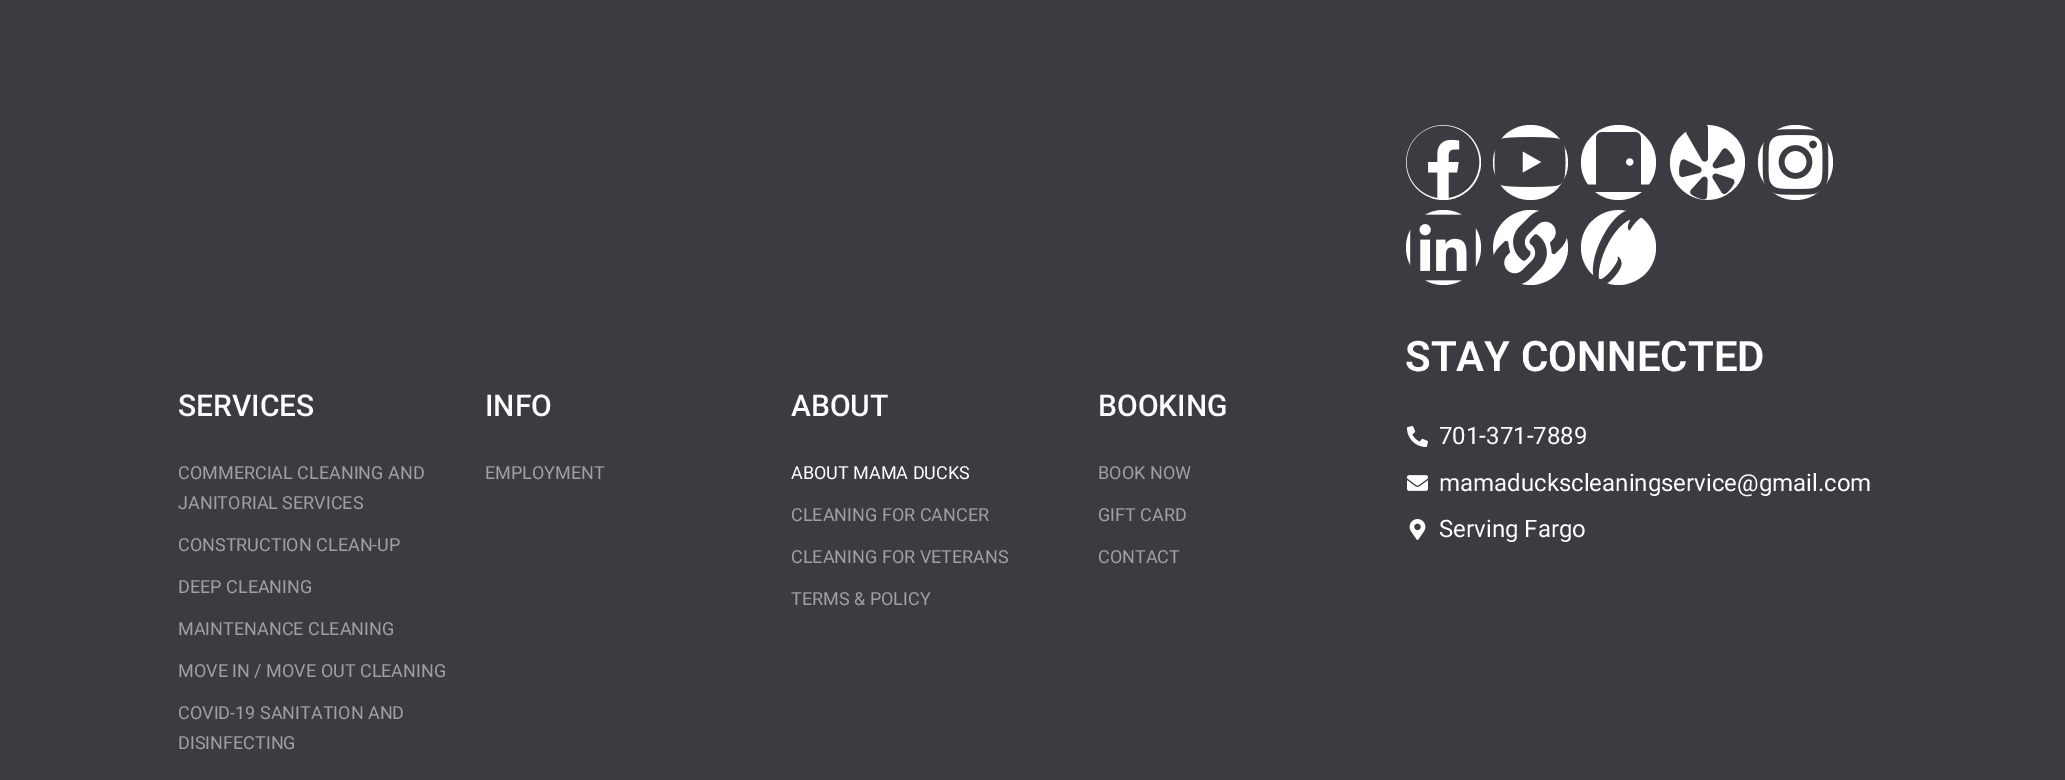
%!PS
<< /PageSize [2065 780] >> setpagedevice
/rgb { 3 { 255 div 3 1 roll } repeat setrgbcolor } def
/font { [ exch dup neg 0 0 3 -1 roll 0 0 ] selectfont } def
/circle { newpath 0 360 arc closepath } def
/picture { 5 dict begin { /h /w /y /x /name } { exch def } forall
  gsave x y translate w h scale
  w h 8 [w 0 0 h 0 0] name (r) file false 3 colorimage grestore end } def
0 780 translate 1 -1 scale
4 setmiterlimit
58 60 65 rgb
0 0 2065 780 rectfill
255 255 255 rgb
1443.5 162.5 37.5 circle fill
(img/1.rgb) 1406 125 74 73 picture
1530.5 162.5 37.5 circle fill
(img/2.rgb) 1494 137 72 50 picture
1618.5 162.5 37.5 circle fill
(img/3.rgb) 1588 132 61 60 picture
1707.5 162.5 37.5 circle fill
(img/4.rgb) 1679 125 56 75 picture
1795.5 162.5 37.5 circle fill
(img/5.rgb) 1762 129 67 66 picture
1443.5 247.5 37.5 circle fill
(img/6.rgb) 1410 214 66 67 picture
1530.5 247.5 37.5 circle fill
(img/7.rgb) 1493 211 74 73 picture
1618.5 247.5 37.5 circle fill
(img/8.rgb) 1592 210 50 74 picture
(img/9.rgb) 1407 426 21 21 picture
(img/10.rgb) 1407 475 21 16 picture
(img/11.rgb) 1409 519 17 21 picture
/Roboto-Medium 30 font
178 416 moveto (SERVICES) show
/Roboto-Regular 18 font
160 160 160 rgb
[
  [(COMMERCIAL CLEANING AND) 178 479]
  [(JANITORIAL SERVICES) 178 509]
  [(CONSTRUCTION CLEAN-UP) 178 551]
  [(DEEP CLEANING) 178 593]
  [(MAINTENANCE CLEANING) 178 635]
  [(MOVE IN / MOVE OUT CLEANING) 178 677]
  [(COVID-19 SANITATION AND) 178 719]
  [(DISINFECTING) 178 749]
] { aload pop moveto show } forall
/Roboto-Medium 30 font
255 255 255 rgb
485 416 moveto (INFO) show
/Roboto-Regular 18 font
160 160 160 rgb
485 479 moveto (EMPLOYMENT) show
/Roboto-Medium 30 font
255 255 255 rgb
791 416 moveto (ABOUT) show
/Roboto-Regular 18 font
791 479 moveto (ABOUT MAMA DUCKS) show
160 160 160 rgb
[
  [(CLEANING FOR CANCER) 791 521]
  [(CLEANING FOR VETERANS) 791 563]
  [(TERMS & POLICY) 791 605]
] { aload pop moveto show } forall
/Roboto-Medium 30 font
255 255 255 rgb
1098 416 moveto (BOOKING) show
/Roboto-Regular 18 font
160 160 160 rgb
[
  [(BOOK NOW) 1098 479]
  [(GIFT CARD) 1098 521]
  [(CONTACT) 1098 563]
] { aload pop moveto show } forall
/Roboto-SemiBold 42 font
255 255 255 rgb
1405 371 moveto (STAY CONNECTED) show
/Roboto-Regular 24 font
[
  [(701-371-7889) 1439 444]
  [(mamaduckscleaningservice@gmail.com) 1439 491]
  [(Serving Fargo) 1439 537]
] { aload pop moveto show } forall
showpage
